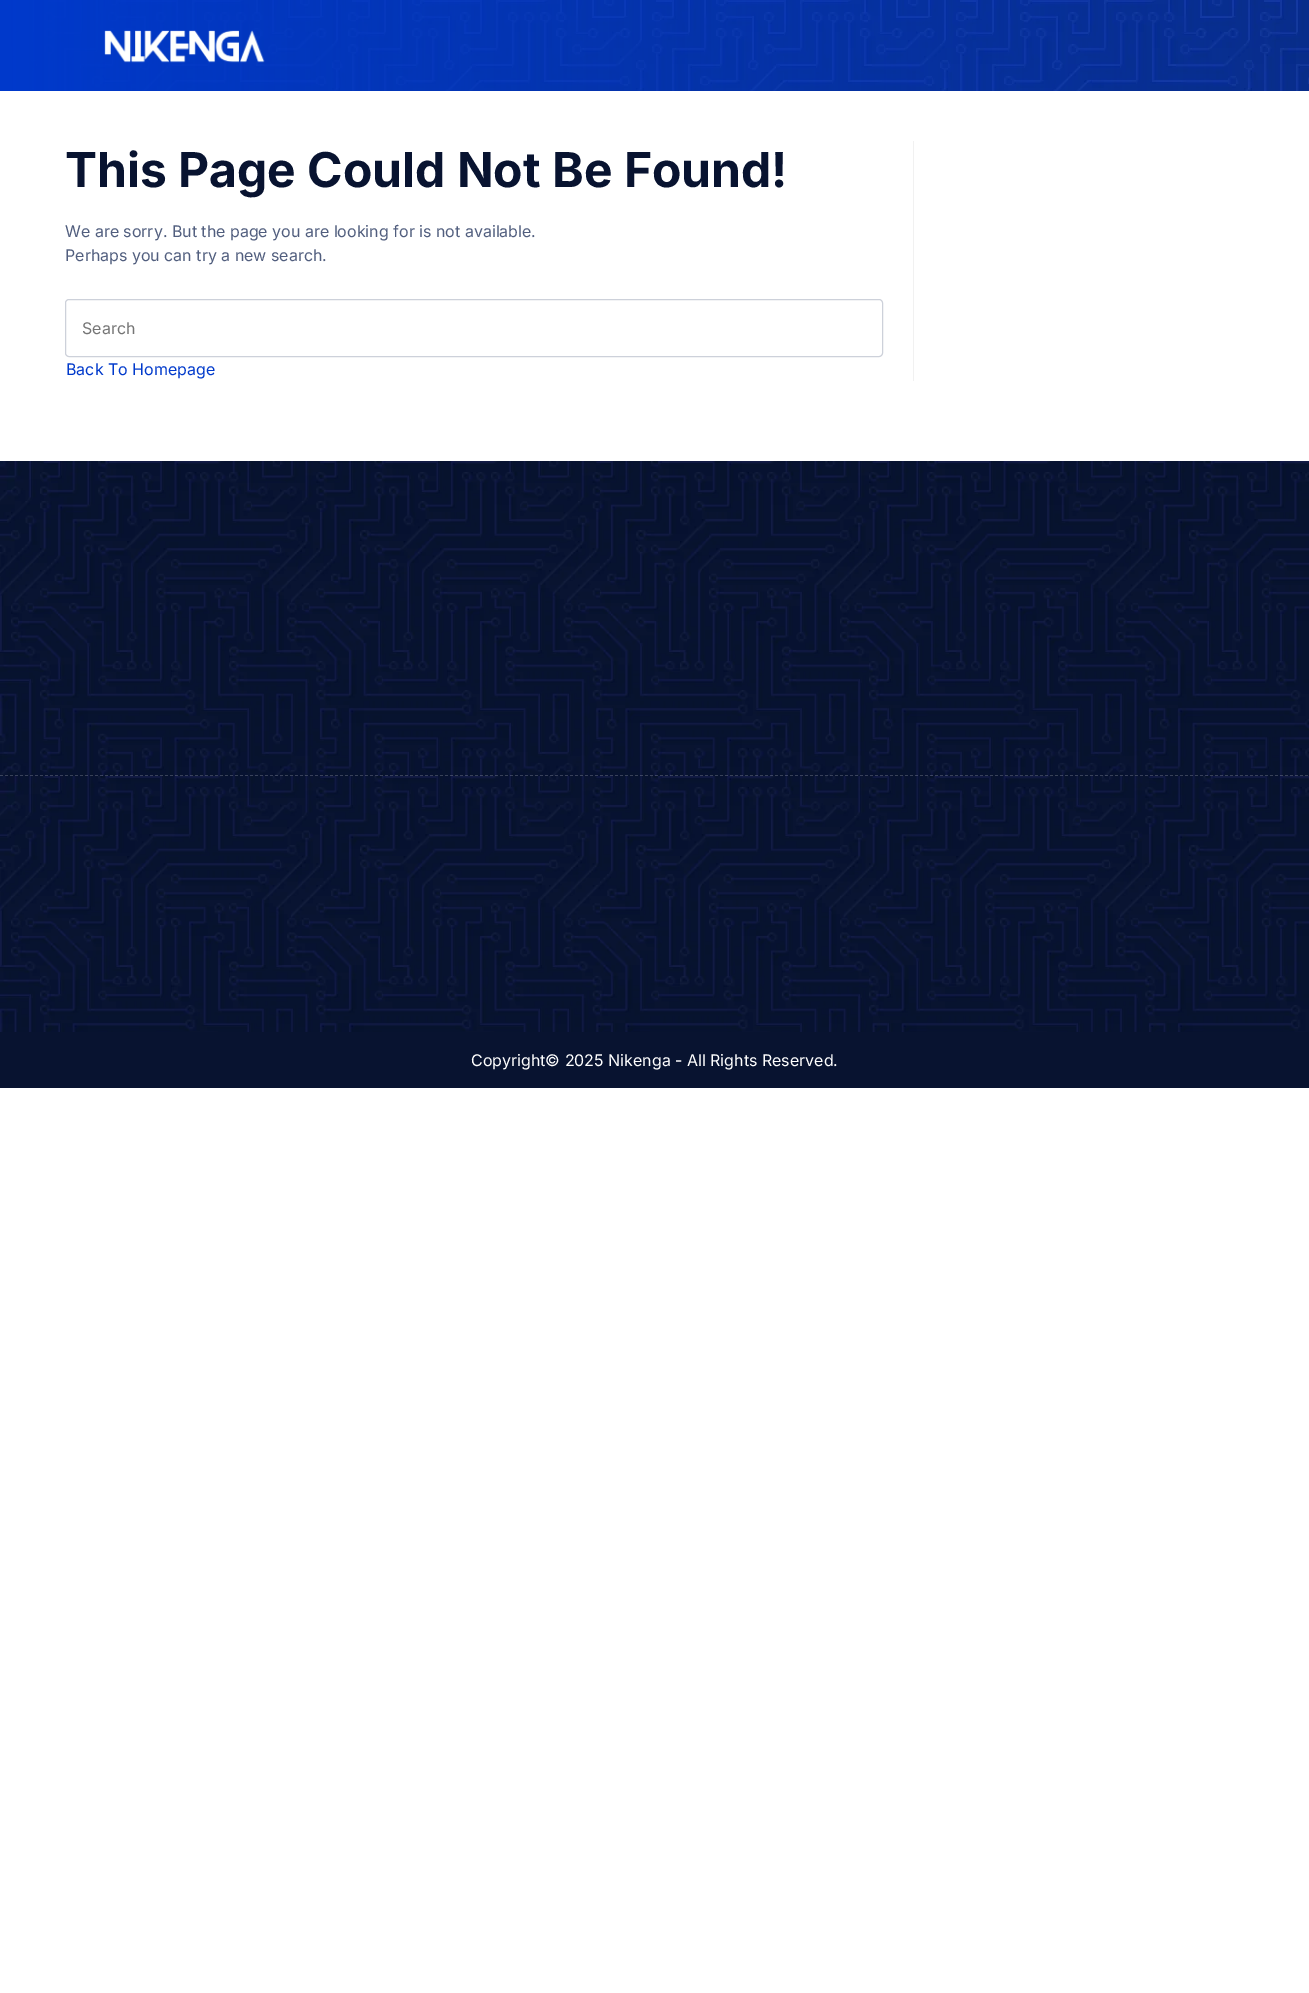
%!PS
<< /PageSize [1309 1993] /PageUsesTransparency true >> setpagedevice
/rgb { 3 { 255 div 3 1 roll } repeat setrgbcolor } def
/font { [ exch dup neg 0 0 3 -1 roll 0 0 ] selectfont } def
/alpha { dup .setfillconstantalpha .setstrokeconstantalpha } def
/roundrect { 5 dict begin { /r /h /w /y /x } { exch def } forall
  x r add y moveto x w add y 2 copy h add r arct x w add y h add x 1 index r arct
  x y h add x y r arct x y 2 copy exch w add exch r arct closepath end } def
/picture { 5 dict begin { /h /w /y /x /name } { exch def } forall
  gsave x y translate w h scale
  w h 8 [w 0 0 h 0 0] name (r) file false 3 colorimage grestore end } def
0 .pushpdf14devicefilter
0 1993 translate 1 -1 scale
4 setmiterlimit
255 255 255 rgb
0 0 1309 1993 rectfill
(img/1.rgb) 0 0 1309 91 picture
(img/2.rgb) 104 30 161 33 picture
241 241 241 rgb
913 141 1 240 rectfill
205 209 218 rgb
65.5 299.5 817 57 3.5 roundrect stroke
(img/3.rgb) 0 461 1309 315 picture
0.2 alpha
255 255 255 rgb
[3 2] 0 setdash
0 775.5 moveto 1309 775.5 lineto stroke
1 alpha
(img/4.rgb) 0 776 1309 256 picture
8 19 48 rgb
0 1032 1309 56 rectfill
/Inter-Bold 48 font
65 187 moveto (This Page Could Not Be Found!) show
/Inter-Regular 16 font
81 94 126 rgb
65 237 moveto (We are sorry. But the page you are looking for is not available.) show
65 261 moveto (Perhaps you can try a new search.) show
117 117 117 rgb
82 334 moveto (Search) show
0 57 203 rgb
66 375 moveto (Back To Homepage) show
255 255 255 rgb
471 1066 moveto (Copyright© 2025 Nikenga - All Rights Reserved.) show
.poppdf14devicefilter showpage
